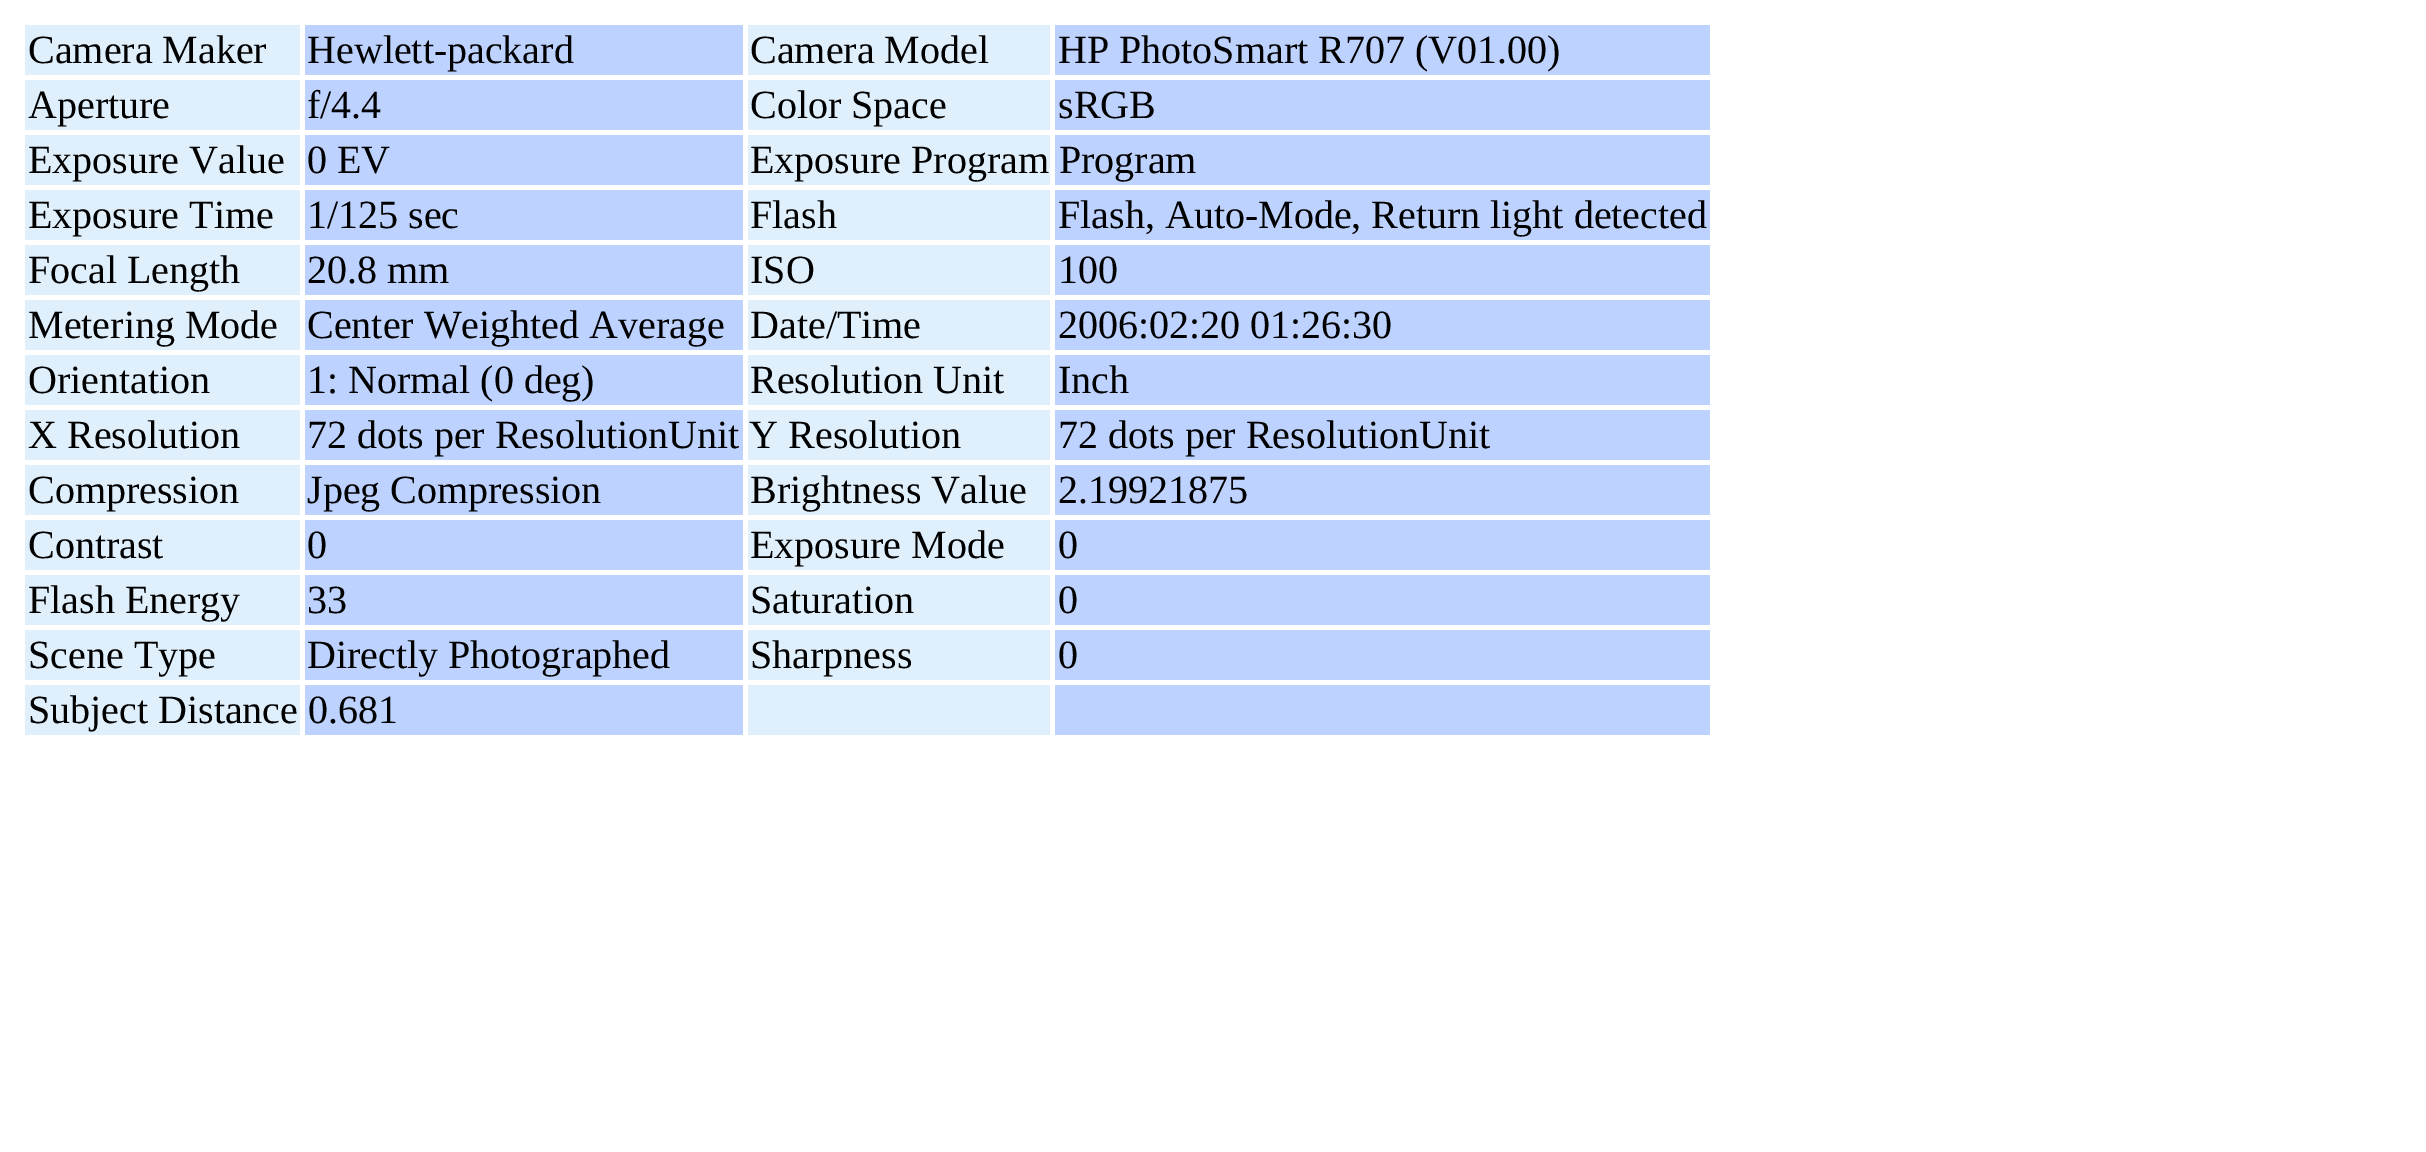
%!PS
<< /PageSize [2426 1152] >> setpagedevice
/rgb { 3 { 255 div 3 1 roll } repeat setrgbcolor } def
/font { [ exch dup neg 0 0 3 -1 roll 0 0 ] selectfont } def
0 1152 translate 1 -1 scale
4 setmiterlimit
255 255 255 rgb
0 0 2426 1152 rectfill
[
  [25 25 275 50 223 239 252]
  [305 25 438 50 189 210 255]
  [748 25 302 50 223 239 252]
  [1055 25 655 50 189 210 255]
  [25 80 275 50 223 239 252]
  [305 80 438 50 189 210 255]
  [748 80 302 50 223 239 252]
  [1055 80 655 50 189 210 255]
  [25 135 275 50 223 239 252]
  [305 135 438 50 189 210 255]
  [748 135 302 50 223 239 252]
  [1055 135 655 50 189 210 255]
  [25 190 275 50 223 239 252]
  [305 190 438 50 189 210 255]
  [748 190 302 50 223 239 252]
  [1055 190 655 50 189 210 255]
  [25 245 275 50 223 239 252]
  [305 245 438 50 189 210 255]
  [748 245 302 50 223 239 252]
  [1055 245 655 50 189 210 255]
  [25 300 275 50 223 239 252]
  [305 300 438 50 189 210 255]
  [748 300 302 50 223 239 252]
  [1055 300 655 50 189 210 255]
  [25 355 275 50 223 239 252]
  [305 355 438 50 189 210 255]
  [748 355 302 50 223 239 252]
  [1055 355 655 50 189 210 255]
  [25 410 275 50 223 239 252]
  [748 410 302 50 223 239 252]
  [305 410 438 50 189 210 255]
  [1055 410 655 50 189 210 255]
  [25 465 275 50 223 239 252]
  [305 465 438 50 189 210 255]
  [748 465 302 50 223 239 252]
  [1055 465 655 50 189 210 255]
  [25 520 275 50 223 239 252]
  [305 520 438 50 189 210 255]
  [748 520 302 50 223 239 252]
  [1055 520 655 50 189 210 255]
  [25 575 275 50 223 239 252]
  [305 575 438 50 189 210 255]
  [748 575 302 50 223 239 252]
  [1055 575 655 50 189 210 255]
  [25 630 275 50 223 239 252]
  [305 630 438 50 189 210 255]
  [748 630 302 50 223 239 252]
  [1055 630 655 50 189 210 255]
  [25 685 275 50 223 239 252]
  [305 685 438 50 189 210 255]
  [748 685 302 50 223 239 252]
  [1055 685 655 50 189 210 255]
] { aload pop rgb rectfill } forall
/LiberationSerif-Regular 40 font
0 0 0 rgb
[
  [(Camera Maker) 28 63]
  [(Hewlett-packard) 307 63]
  [(Camera Model) 750 63]
  [(HP PhotoSmart R707 \(V01.00\)) 1058 63]
  [(Aperture) 28 118]
  [(f/4.4) 307 118]
  [(Color Space) 750 118]
  [(sRGB) 1058 118]
  [(Exposure Value) 28 173]
  [(0 EV) 307 173]
  [(Exposure Program Program) 750 173]
  [(Exposure Time) 28 228]
  [(1/125 sec) 307 228]
  [(Flash) 750 228]
  [(Flash, Auto-Mode, Return light detected) 1058 228]
  [(Focal Length) 28 283]
  [(20.8 mm) 307 283]
  [(ISO) 750 283]
  [(100) 1058 283]
  [(Metering Mode) 28 338]
  [(Center Weighted Average) 307 338]
  [(Date/Time) 750 338]
  [(2006:02:20 01:26:30) 1058 338]
  [(Orientation) 28 393]
  [(1: Normal \(0 deg\)) 307 393]
  [(Resolution Unit) 750 393]
  [(Inch) 1058 393]
  [(X Resolution) 28 448]
  [(72 dots per ResolutionUnit Y Resolution) 307 448]
  [(72 dots per ResolutionUnit) 1058 448]
  [(Compression) 28 503]
  [(Jpeg Compression) 307 503]
  [(Brightness Value) 750 503]
  [(2.19921875) 1058 503]
  [(Contrast) 28 558]
  [(0) 307 558]
  [(Exposure Mode) 750 558]
  [(0) 1058 558]
  [(Flash Energy) 28 613]
  [(33) 307 613]
  [(Saturation) 750 613]
  [(0) 1058 613]
  [(Scene Type) 28 668]
  [(Directly Photographed) 307 668]
  [(Sharpness) 750 668]
  [(0) 1058 668]
  [(Subject Distance 0.681) 28 723]
] { aload pop moveto show } forall
showpage
